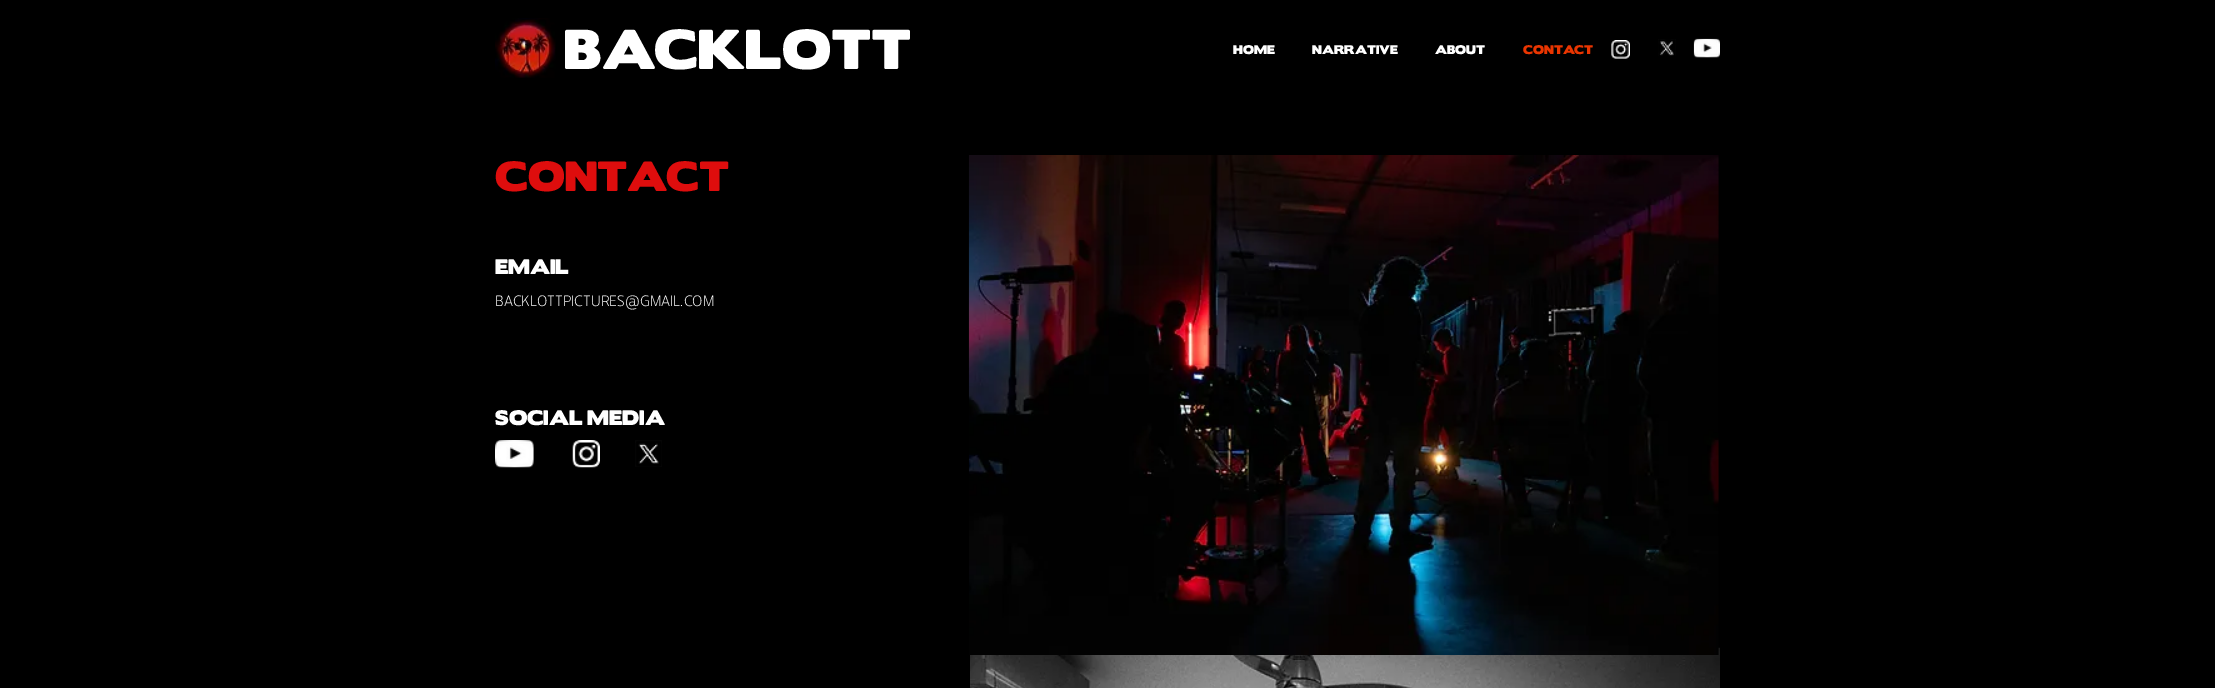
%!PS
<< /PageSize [2215 688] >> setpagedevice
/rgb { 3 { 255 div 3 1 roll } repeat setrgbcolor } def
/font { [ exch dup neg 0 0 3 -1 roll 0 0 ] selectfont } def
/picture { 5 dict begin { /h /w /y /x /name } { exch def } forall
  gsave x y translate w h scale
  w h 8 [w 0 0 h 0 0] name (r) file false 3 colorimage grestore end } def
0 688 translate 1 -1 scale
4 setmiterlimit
0 0 0 rgb
0 0 2215 688 rectfill
(img/1.rgb) 495 18 61 60 picture
(img/2.rgb) 1611 40 19 19 picture
(img/3.rgb) 1658 39 18 17 picture
(img/4.rgb) 1693 38 27 20 picture
(img/9.rgb) 970 647 750 41 picture
(img/5.rgb) 968 155 751 500 picture
(img/6.rgb) 495 440 39 28 picture
(img/7.rgb) 572 440 28 28 picture
(img/8.rgb) 635 440 27 27 picture
/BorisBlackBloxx-Black 50 font
255 255 255 rgb
564 69 moveto (BACKLOTT) show
/BorisBlackBloxx-Black 11.25 font
[
  [(HOME) 1233 54]
  [(NARRATIVE) 1312 54]
  [(ABOUT) 1435 54]
] { aload pop moveto show } forall
234 53 0 rgb
1523 54 moveto (CONTACT) show
/BorisBlackBloxx-Black 37.5 font
222 13 13 rgb
495 191 moveto (CONTACT) show
/BorisBlackBloxx-Black 18.75 font
255 255 255 rgb
495 274 moveto (EMAIL) show
/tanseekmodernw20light-Light 22.5 font
495 306 moveto (BACKLOTTPICTURES@GMAIL.COM) show
/BorisBlackBloxx-Black 18.75 font
495 425 moveto (SOCIAL MEDIA) show
showpage
